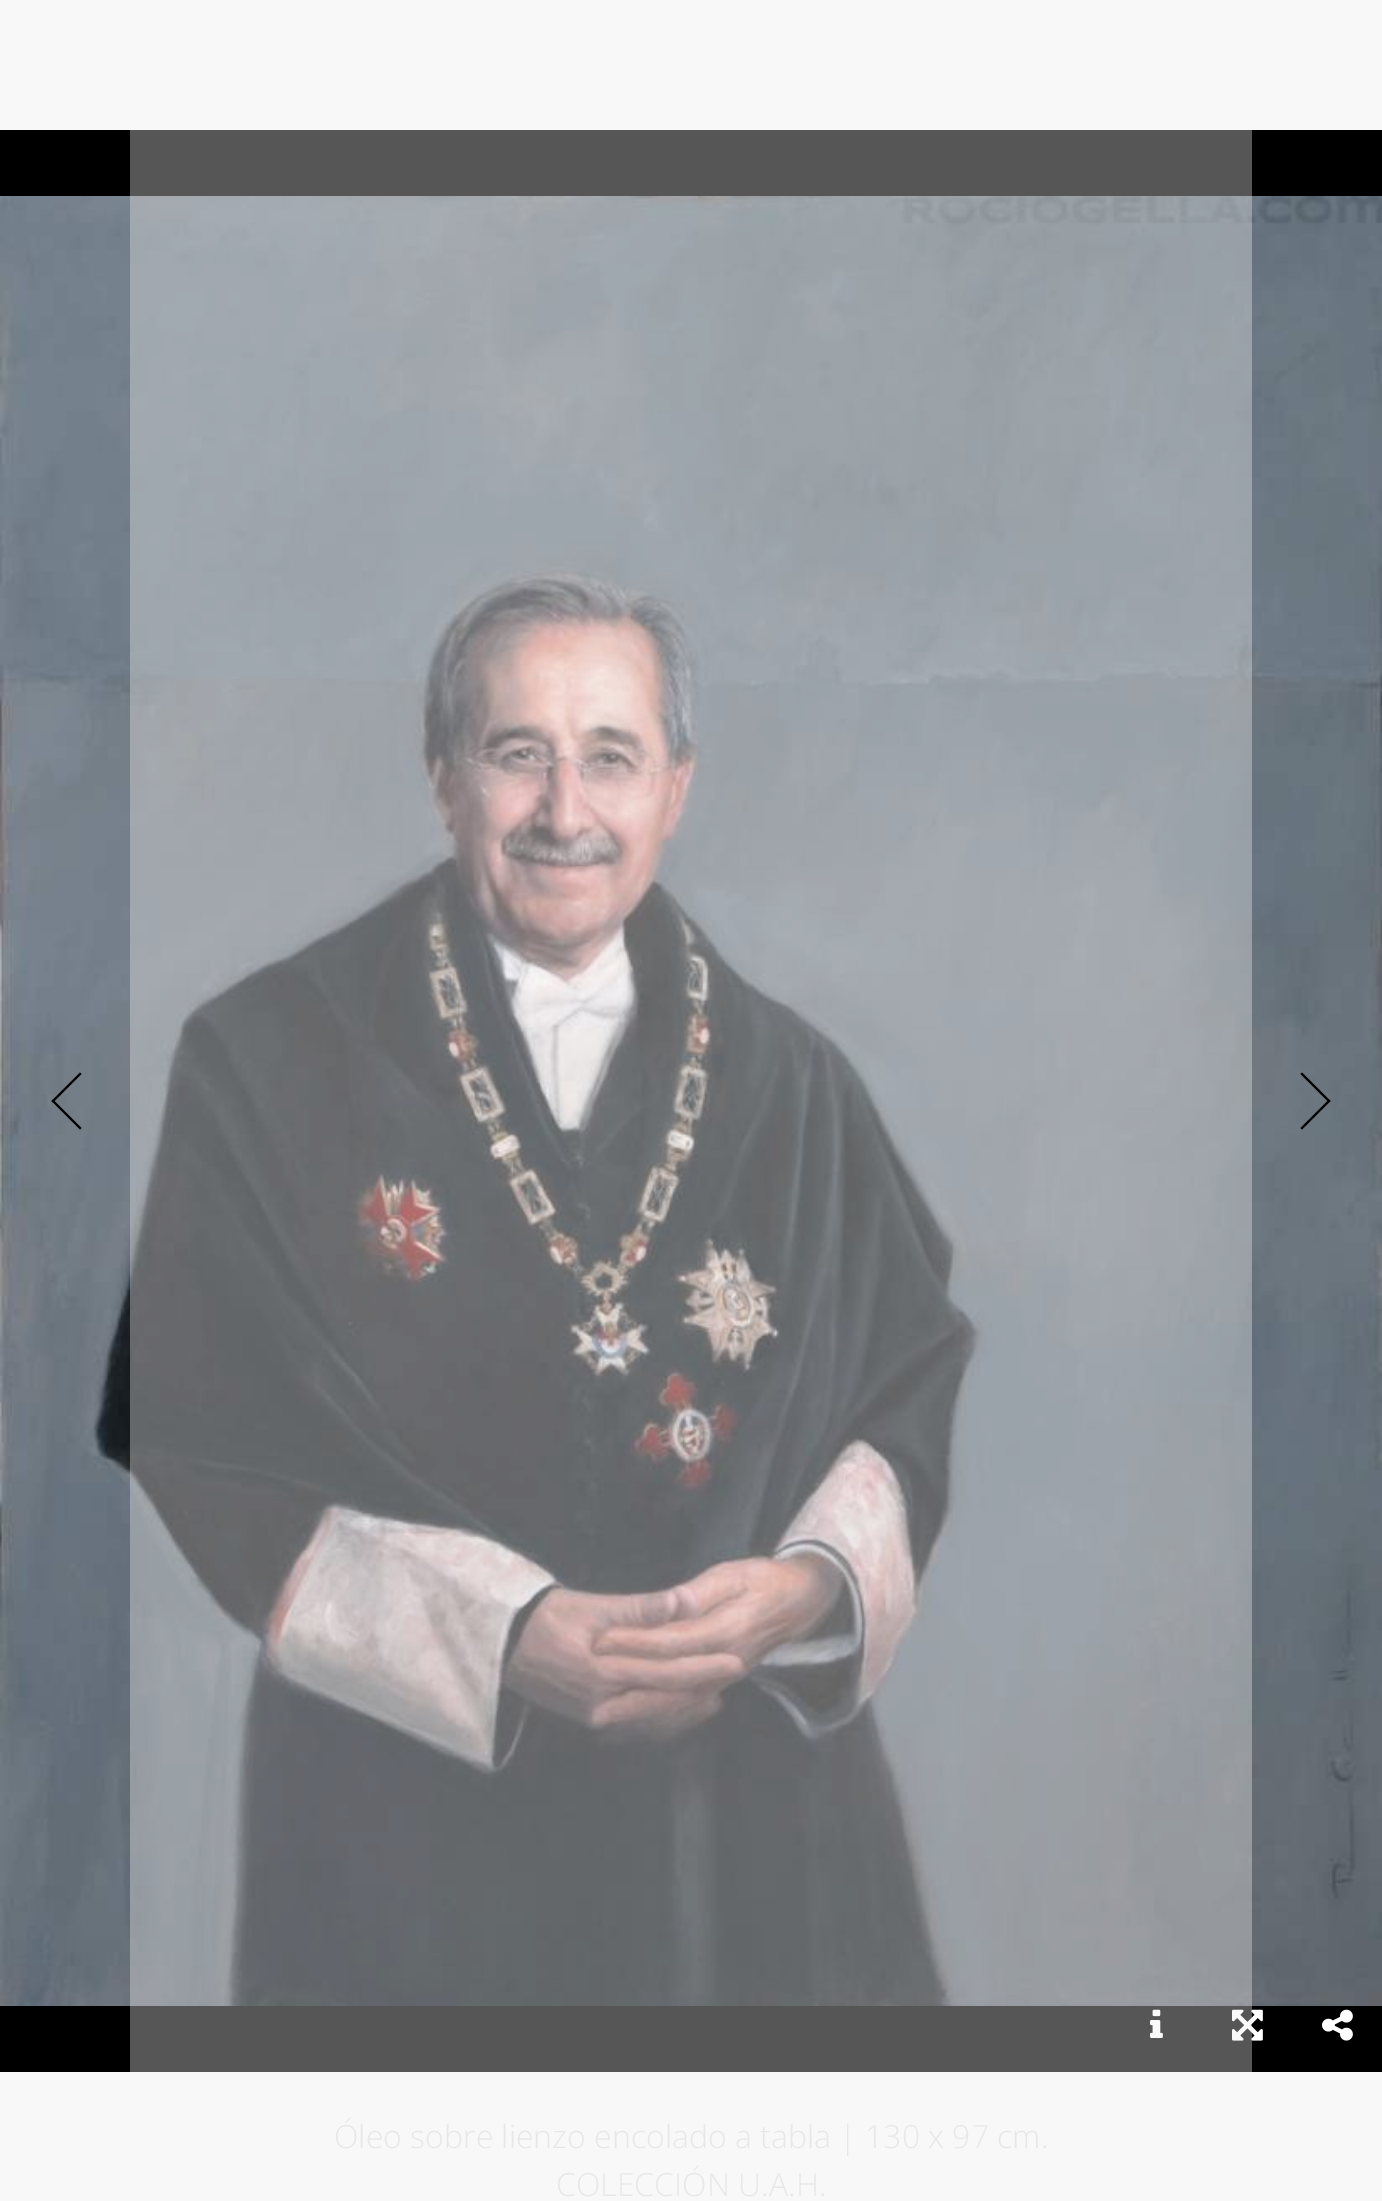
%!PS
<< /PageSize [1382 2201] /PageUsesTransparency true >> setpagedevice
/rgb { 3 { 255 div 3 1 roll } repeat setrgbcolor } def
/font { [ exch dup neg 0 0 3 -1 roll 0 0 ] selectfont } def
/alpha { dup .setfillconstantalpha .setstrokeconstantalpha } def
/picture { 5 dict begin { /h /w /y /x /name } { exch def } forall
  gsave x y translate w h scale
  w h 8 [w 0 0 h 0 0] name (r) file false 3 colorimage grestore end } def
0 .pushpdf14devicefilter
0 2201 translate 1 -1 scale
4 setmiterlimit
248 248 248 rgb
0 0 1382 2201 rectfill
0 0 0 rgb
0 130 1382 1942 rectfill
(img/1.rgb) 0 196 1382 1810 picture
(img/2.rgb) 1150 2009 13 29 picture
(img/3.rgb) 1232 2009 31 32 picture
0.36 alpha
238 238 238 rgb
130 130 1122 1942 rectfill
1 alpha
0 0 0 rgb
53 1099.5 moveto 81.5 1128 lineto 80 1129.5 lineto 51.5 1101 lineto closepath fill
80 1072.5 moveto 81.5 1074 lineto 53 1102.5 lineto 51.5 1101 lineto closepath fill
1302 1072.5 moveto 1330.5 1101 lineto 1329 1102.5 lineto 1300.5 1074 lineto closepath fill
1329 1099.5 moveto 1330.5 1101 lineto 1302 1129.5 lineto 1300.5 1128 lineto closepath fill
(img/4.rgb) 1322 2009 31 32 picture
/OpenSans-Light 32 font
231 231 231 rgb
334 2148 moveto (Óleo sobre lienzo encolado a tabla | 130 x 97 cm.) show
556 2196 moveto (COLECCIÓN U.A.H.) show
.poppdf14devicefilter showpage
